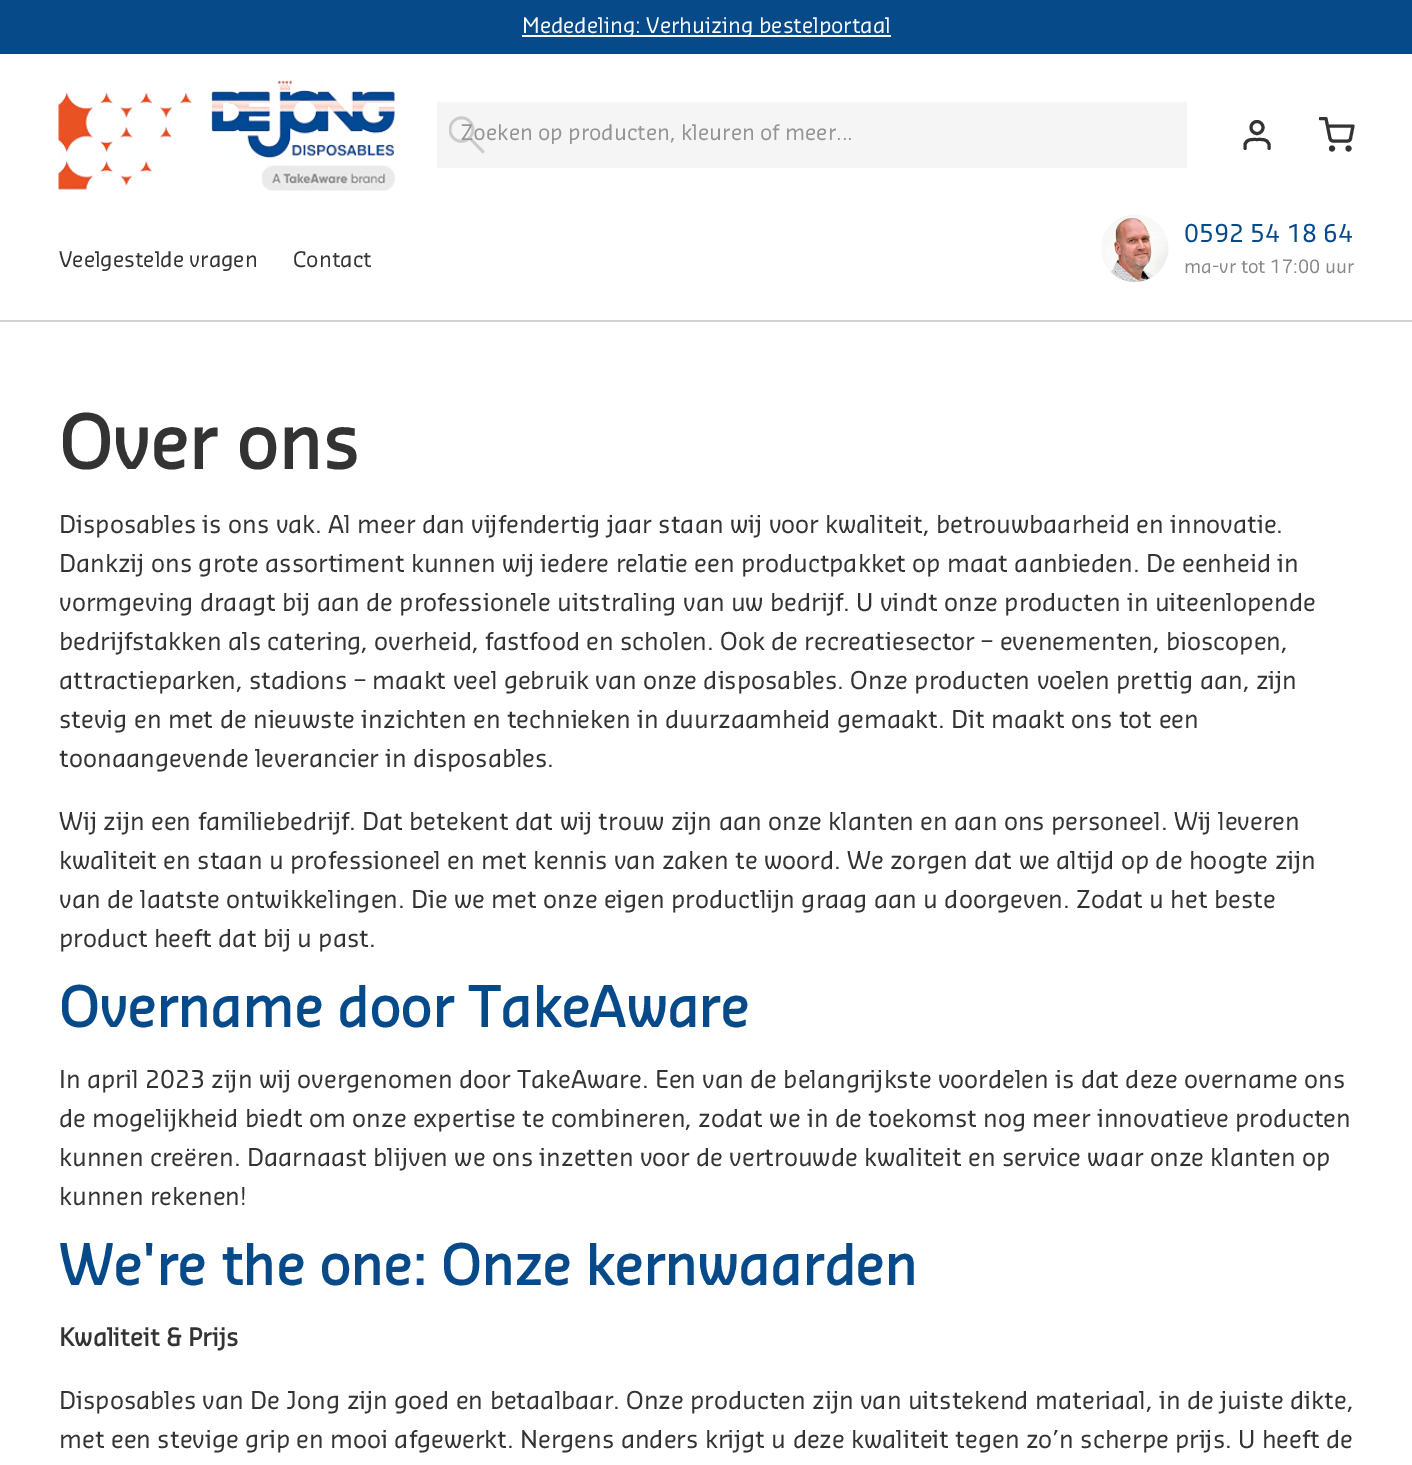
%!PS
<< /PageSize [1412 1465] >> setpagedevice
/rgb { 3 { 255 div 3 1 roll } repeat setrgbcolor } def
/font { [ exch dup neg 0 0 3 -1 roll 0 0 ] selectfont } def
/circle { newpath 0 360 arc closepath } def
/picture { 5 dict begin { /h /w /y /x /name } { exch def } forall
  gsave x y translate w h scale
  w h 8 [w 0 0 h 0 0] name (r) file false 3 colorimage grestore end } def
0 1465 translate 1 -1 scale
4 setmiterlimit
255 255 255 rgb
0 0 1412 1465 rectfill
[
  [0 0 1412 54 6 74 137]
  [522 35 369 2 250 250 250]
  [0 320 1412 2 208 209 212]
] { aload pop rgb rectfill } forall
(img/1.rgb) 58 80 337 111 picture
245 245 245 rgb
437 102 750 66 rectfill
51 51 51 rgb
3 setlinewidth
1 setlinecap
1 setlinejoin
1269 148.5 moveto 1269 144.5 lineto 1267.5 138.5 1261.5 139.5 1257 139.5 curveto 1252.5 139.5 1246.5 138.5 1245 144.5 curveto 1245 148.5 lineto stroke
0 setlinecap
0 setlinejoin
1257 127.5 6 circle stroke
1332 148.5 1.5 circle stroke
1348.5 148.5 1.5 circle stroke
gsave
1319 117 36 36 rectclip
1 setlinecap
1 setlinejoin
1320 118.5 moveto 1326 118.5 lineto 1330 138.5 lineto 1330.5 140 1331.5 141 1333 141 curveto 1347.5 141 lineto 1349 141 1350.5 140 1350.5 138.5 curveto 1353 126 lineto 1327.5 126 lineto stroke
grestore
(img/3.rgb) 1101 214 68 68 picture
/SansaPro-Regular 21 font
250 250 250 rgb
522 33 moveto (Mededeling: Verhuizing bestelportaal) show
148 148 148 rgb
461 140 moveto (Zoeken op producten, kleuren of meer...) show
(img/2.rgb) 449 116 36 38 picture
51 51 51 rgb
59 267 moveto (Veelgestelde vragen) show
293 267 moveto (Contact) show
/SansaPro-Regular 24 font
6 74 137 rgb
1184 242 moveto (0592 54 18 64) show
/SansaPro-Regular 18 font
136 136 136 rgb
1184 273 moveto (ma-vr tot 17:00 uur) show
/SansaPro-Bold 72 font
51 51 51 rgb
59 469 moveto (Over ons) show
/SansaPro-Regular 24 font
[
  [(Disposables is ons vak. Al meer dan vijfendertig jaar staan wij voor kwaliteit, betrouwbaarheid en innovatie.) 59 533]
  [(Dankzij ons grote assortiment kunnen wij iedere relatie een productpakket op maat aanbieden. De eenheid in) 59 572]
  [(vormgeving draagt bij aan de professionele uitstraling van uw bedrijf. U vindt onze producten in uiteenlopende) 59 611]
  [(bedrijfstakken als catering, overheid, fastfood en scholen. Ook de recreatiesector – evenementen, bioscopen,) 59 650]
  [(attractieparken, stadions – maakt veel gebruik van onze disposables. Onze producten voelen prettig aan, zijn) 59 689]
  [(stevig en met de nieuwste inzichten en technieken in duurzaamheid gemaakt. Dit maakt ons tot een) 59 728]
  [(toonaangevende leverancier in disposables.) 59 767]
  [(Wij zijn een familiebedrijf. Dat betekent dat wij trouw zijn aan onze klanten en aan ons personeel. Wij leveren) 59 830]
  [(kwaliteit en staan u professioneel en met kennis van zaken te woord. We zorgen dat we altijd op de hoogte zijn) 59 869]
  [(van de laatste ontwikkelingen. Die we met onze eigen productlijn graag aan u doorgeven. Zodat u het beste) 59 908]
  [(product heeft dat bij u past.) 59 947]
] { aload pop moveto show } forall
/SansaPro-Bold 54 font
6 74 137 rgb
59 1027 moveto (Overname door TakeAware) show
/SansaPro-Regular 24 font
51 51 51 rgb
[
  [(In april 2023 zijn wij overgenomen door TakeAware. Een van de belangrijkste voordelen is dat deze overname ons) 59 1088]
  [(de mogelijkheid biedt om onze expertise te combineren, zodat we in de toekomst nog meer innovatieve producten) 59 1127]
  [(kunnen creëren. Daarnaast blijven we ons inzetten voor de vertrouwde kwaliteit en service waar onze klanten op) 59 1166]
  [(kunnen rekenen!) 59 1205]
] { aload pop moveto show } forall
/SansaPro-Bold 54 font
6 74 137 rgb
59 1285 moveto (We're the one: Onze kernwaarden) show
/SansaPro-Bold 24 font
51 51 51 rgb
59 1346 moveto (Kwaliteit & Prijs) show
/SansaPro-Regular 24 font
59 1409 moveto (Disposables van De Jong zijn goed en betaalbaar. Onze producten zijn van uitstekend materiaal, in de juiste dikte,) show
59 1448 moveto (met een stevige grip en mooi afgewerkt. Nergens anders krijgt u deze kwaliteit tegen zo’n scherpe prijs. U heeft de) show
showpage
